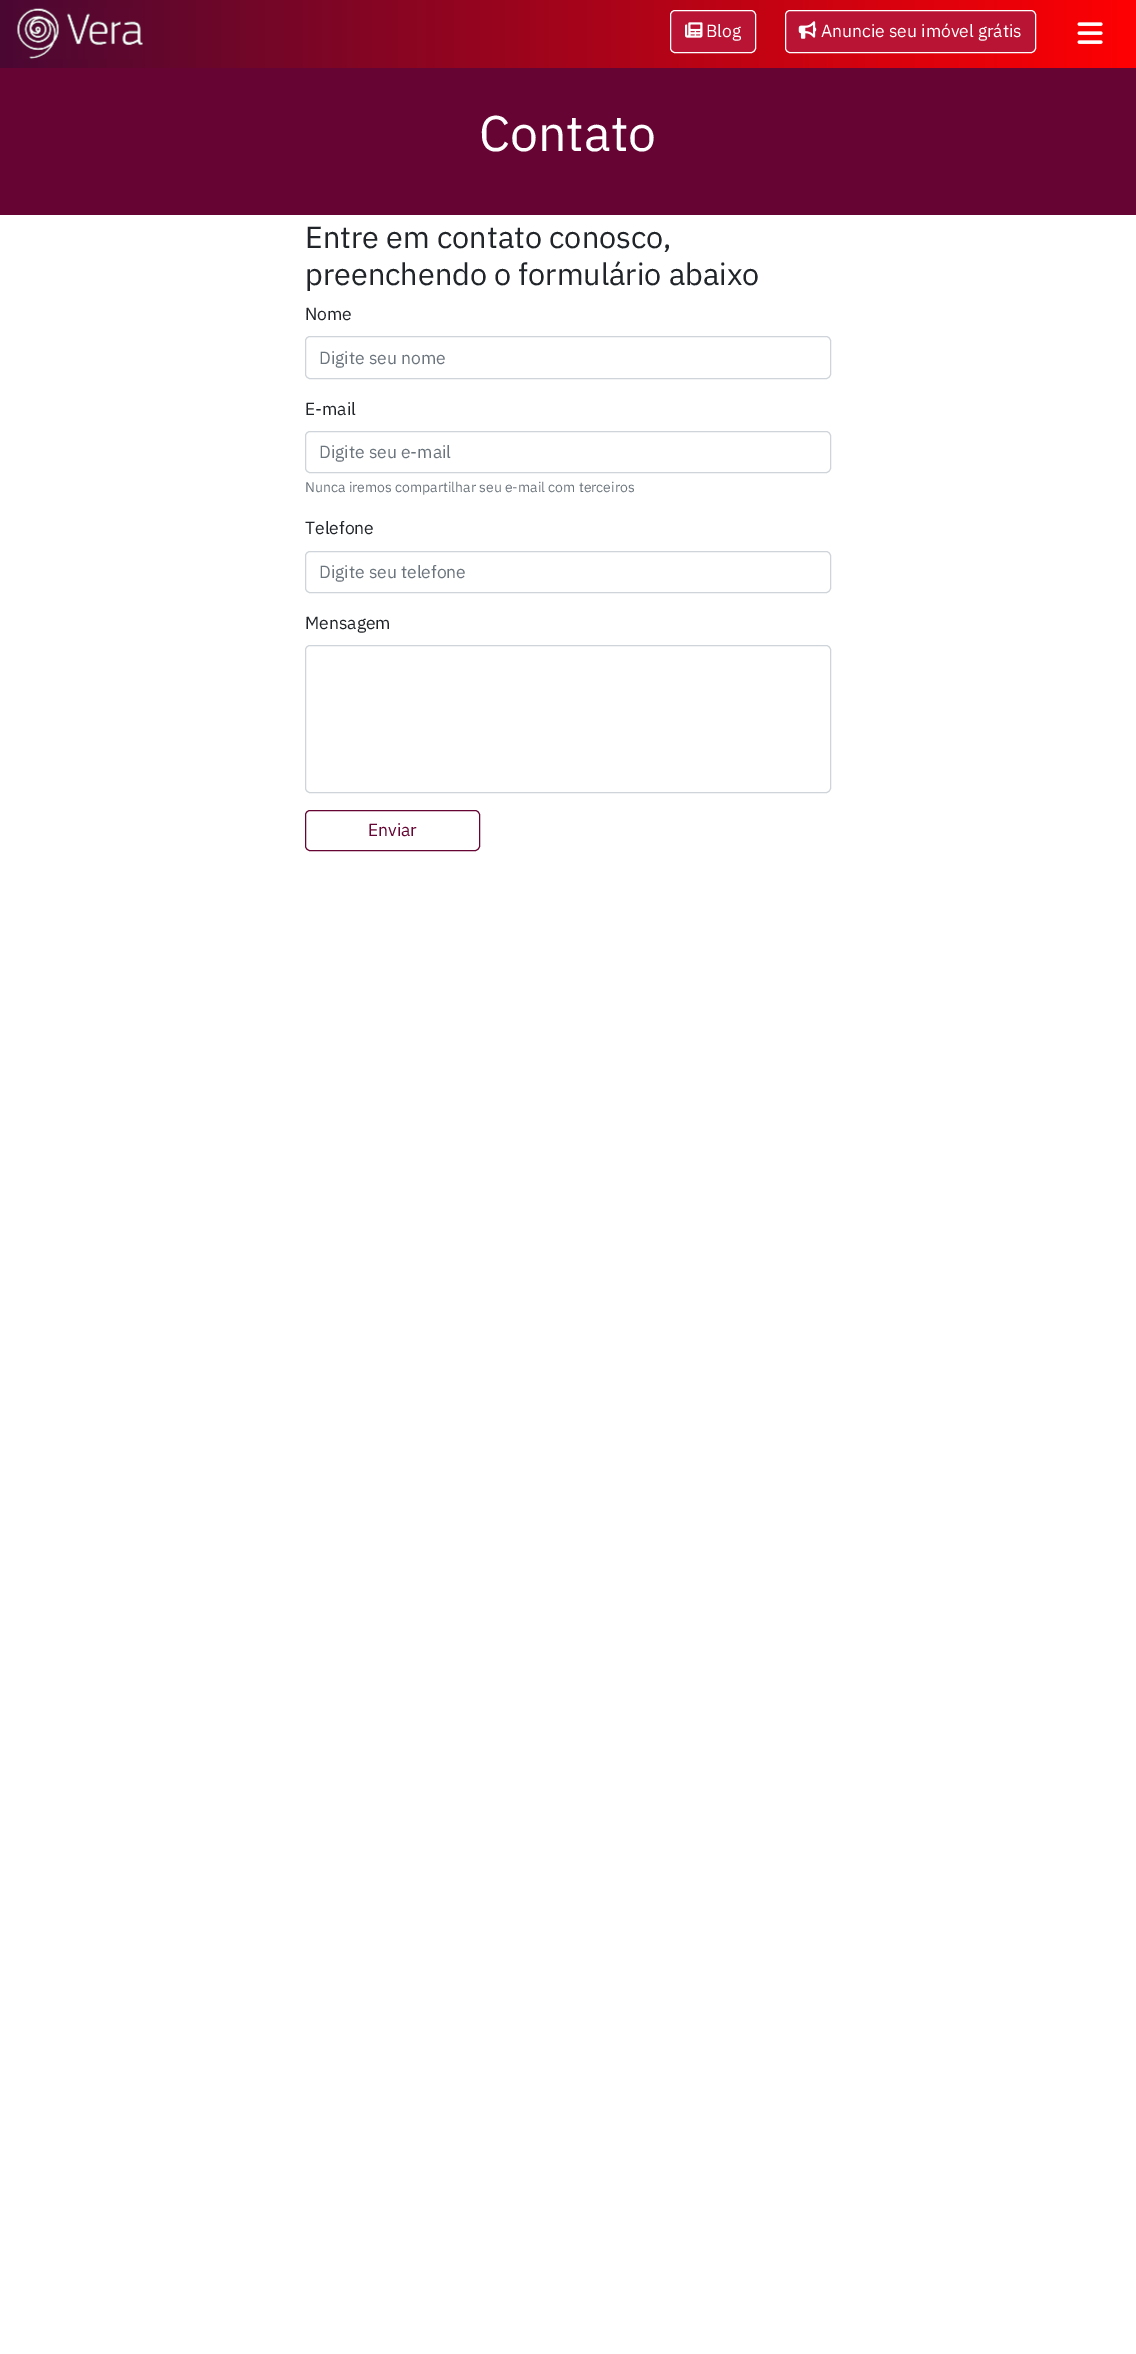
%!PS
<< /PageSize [1136 2354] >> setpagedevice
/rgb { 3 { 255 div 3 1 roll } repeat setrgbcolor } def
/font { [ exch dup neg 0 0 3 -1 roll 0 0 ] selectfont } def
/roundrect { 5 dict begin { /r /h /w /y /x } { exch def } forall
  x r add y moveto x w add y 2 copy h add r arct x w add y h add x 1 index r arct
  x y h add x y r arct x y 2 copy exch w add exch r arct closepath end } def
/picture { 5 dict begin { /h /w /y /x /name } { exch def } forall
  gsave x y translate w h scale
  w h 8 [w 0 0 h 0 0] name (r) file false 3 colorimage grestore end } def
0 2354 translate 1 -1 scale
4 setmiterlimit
255 255 255 rgb
0 0 1136 2354 rectfill
gsave 0 0 moveto 1136 0 lineto 1136 68 lineto 0 68 lineto closepath clip newpath
<< /ShadingType 2 /ColorSpace /DeviceRGB /Coords [0 34 1136 34] /Extend [true true] /Function << /FunctionType 2 /Domain [0 1] /C0 [0.29 0.031 0.2] /C1 [1 0 0.012] /N 1 >> >> shfill grestore
(img/1.rgb) 17 8 126 51 picture
185 20 51 rgb
670.5 10.5 85 42 4.5 roundrect gsave fill grestore
255 255 255 rgb
stroke
(img/2.rgb) 685 22 18 16 picture
185 20 51 rgb
785.5 10.5 250 42 4.5 roundrect gsave fill grestore
255 255 255 rgb
stroke
(img/3.rgb) 798 21 19 18 picture
(img/4.rgb) 1077 22 26 22 picture
102 5 51 rgb
0 68 1136 147 rectfill
206 212 218 rgb
305.5 336.5 525 42 4.5 roundrect stroke
305.5 431.5 525 41 4.5 roundrect stroke
305.5 551.5 525 41 4.5 roundrect stroke
305.5 645.5 525 147 4.5 roundrect stroke
102 5 51 rgb
305.5 810.5 174 40 4.5 roundrect stroke
/IBMPlexSans-Regular 17.5 font
255 255 255 rgb
706 37 moveto (Blog) show
821 37 moveto (Anuncie seu imóvel grátis) show
/IBMPlexSans-Regular 50 font
479 151 moveto (Contato) show
/IBMPlexSans-Regular 30.6 font
33 37 41 rgb
305 248 moveto (Entre em contato conosco,) show
305 285 moveto (preenchendo o formulário abaixo) show
/IBMPlexSans-Regular 17.5 font
305 320 moveto (Nome) show
108 117 125 rgb
319 364 moveto (Digite seu nome) show
33 37 41 rgb
305 415 moveto (E-mail) show
108 117 125 rgb
319 458 moveto (Digite seu e-mail) show
/IBMPlexSans-Regular 14 font
305 492 moveto (Nunca iremos compartilhar seu e-mail com terceiros) show
/IBMPlexSans-Regular 17.5 font
33 37 41 rgb
305 534 moveto (Telefone) show
108 117 125 rgb
319 578 moveto (Digite seu telefone) show
33 37 41 rgb
305 629 moveto (Mensagem) show
102 5 51 rgb
368 836 moveto (Enviar) show
showpage
